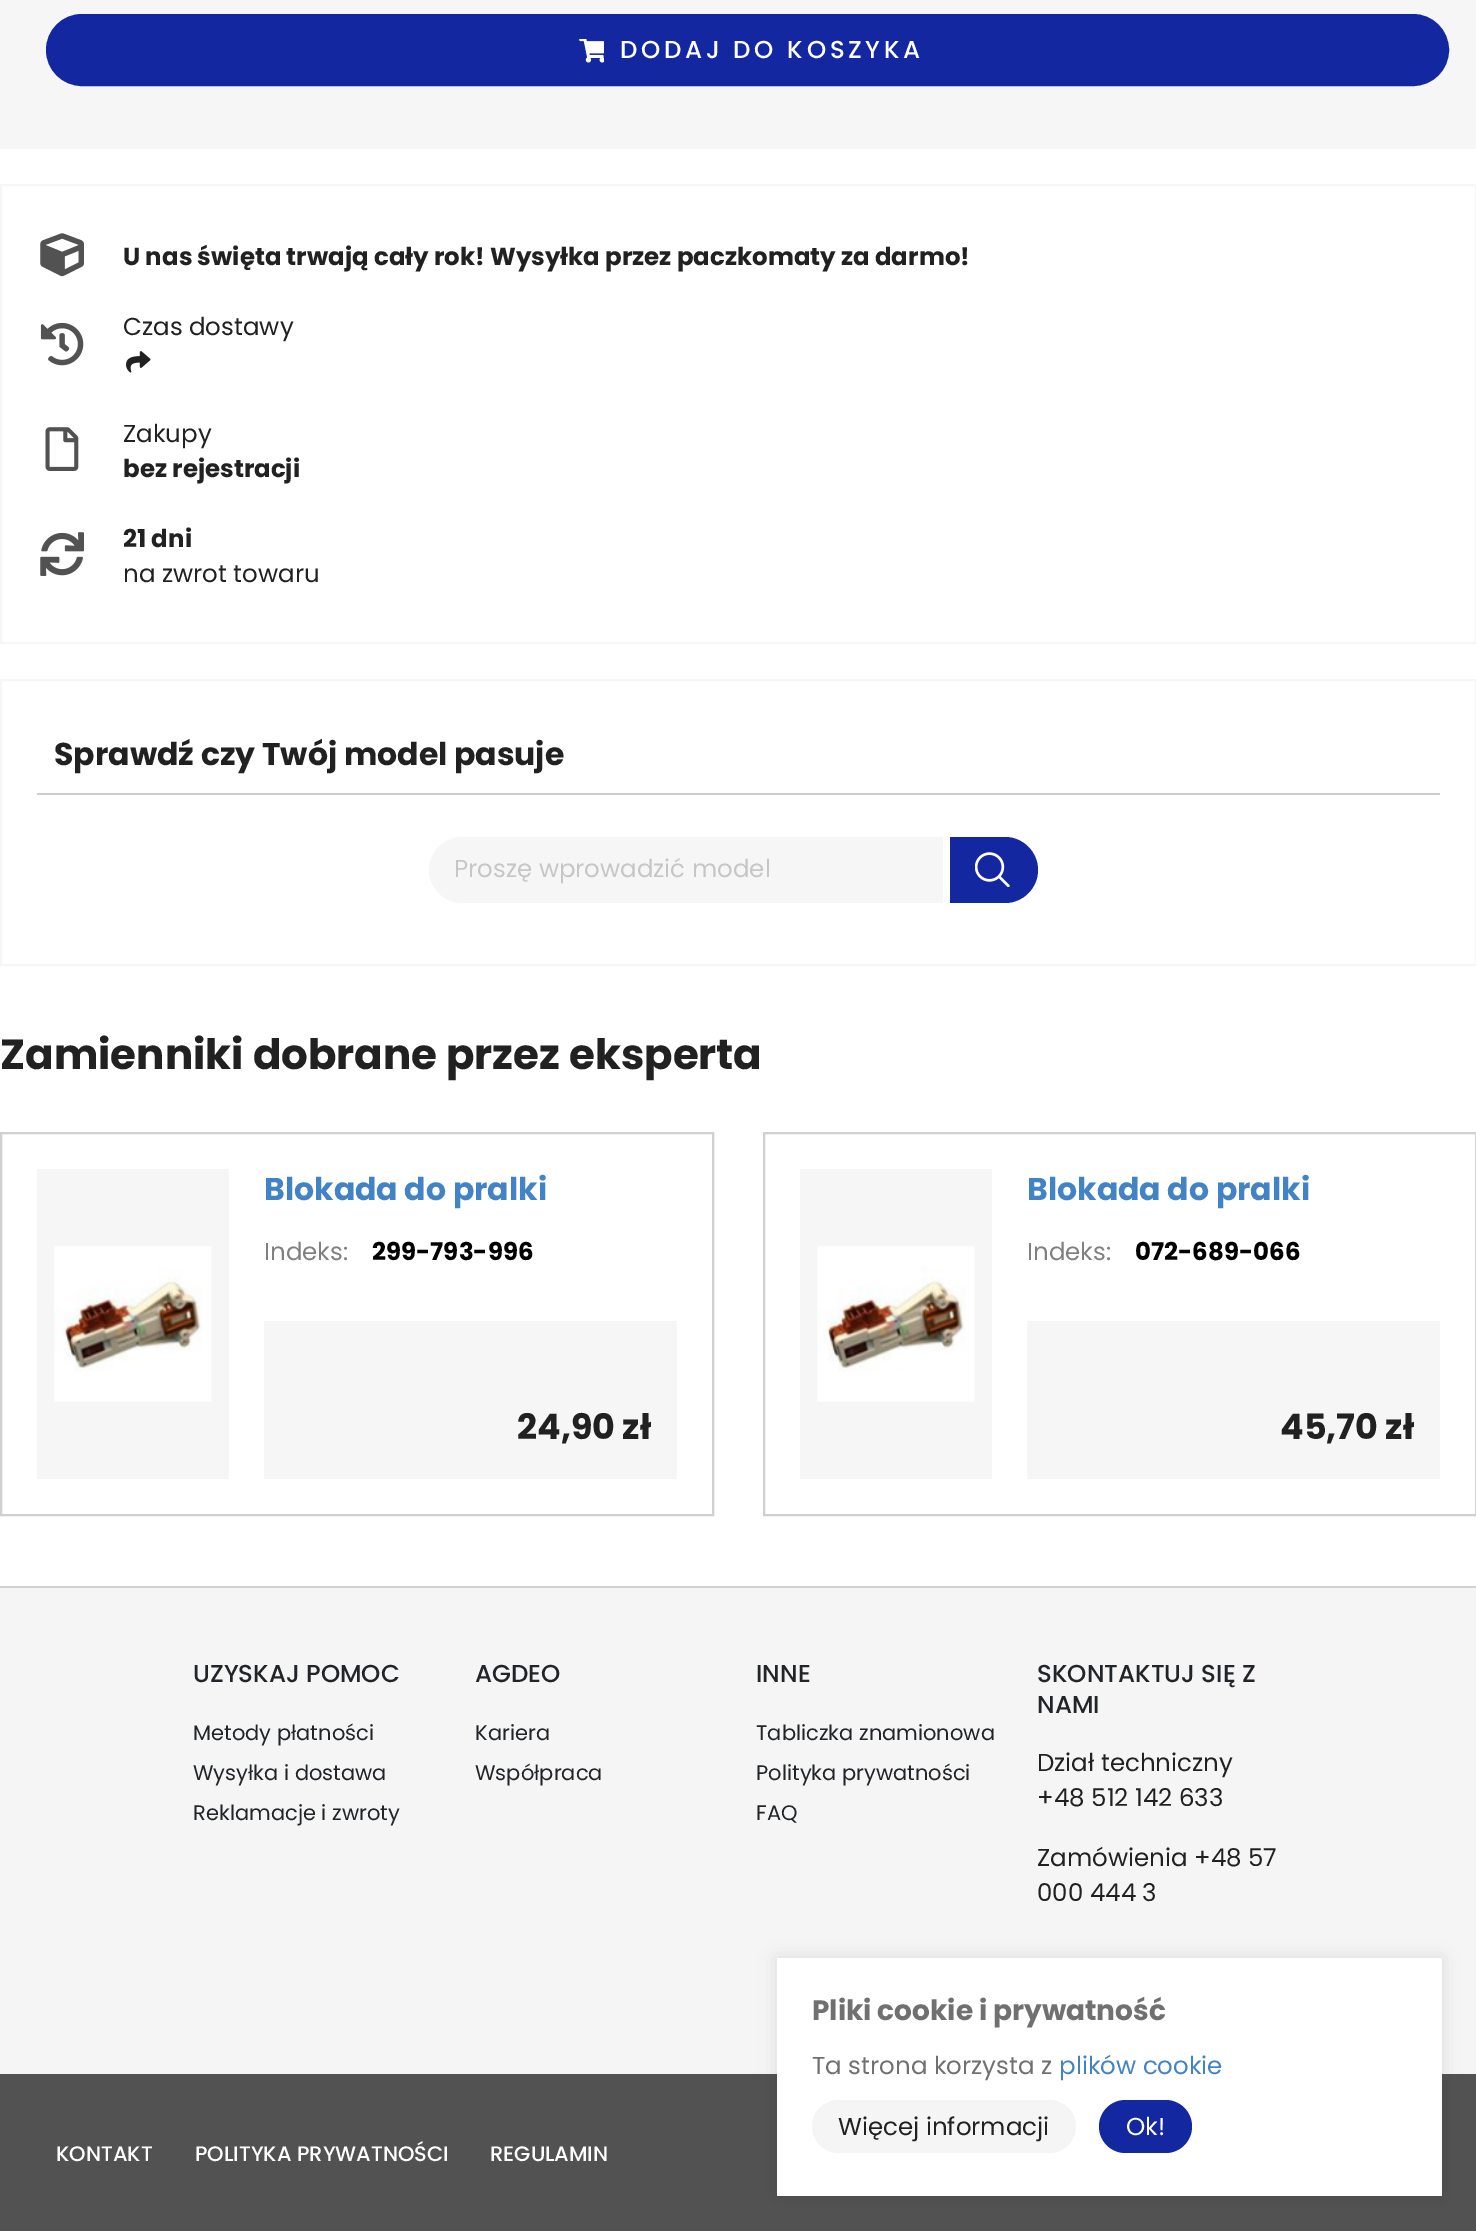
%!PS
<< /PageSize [1476 2231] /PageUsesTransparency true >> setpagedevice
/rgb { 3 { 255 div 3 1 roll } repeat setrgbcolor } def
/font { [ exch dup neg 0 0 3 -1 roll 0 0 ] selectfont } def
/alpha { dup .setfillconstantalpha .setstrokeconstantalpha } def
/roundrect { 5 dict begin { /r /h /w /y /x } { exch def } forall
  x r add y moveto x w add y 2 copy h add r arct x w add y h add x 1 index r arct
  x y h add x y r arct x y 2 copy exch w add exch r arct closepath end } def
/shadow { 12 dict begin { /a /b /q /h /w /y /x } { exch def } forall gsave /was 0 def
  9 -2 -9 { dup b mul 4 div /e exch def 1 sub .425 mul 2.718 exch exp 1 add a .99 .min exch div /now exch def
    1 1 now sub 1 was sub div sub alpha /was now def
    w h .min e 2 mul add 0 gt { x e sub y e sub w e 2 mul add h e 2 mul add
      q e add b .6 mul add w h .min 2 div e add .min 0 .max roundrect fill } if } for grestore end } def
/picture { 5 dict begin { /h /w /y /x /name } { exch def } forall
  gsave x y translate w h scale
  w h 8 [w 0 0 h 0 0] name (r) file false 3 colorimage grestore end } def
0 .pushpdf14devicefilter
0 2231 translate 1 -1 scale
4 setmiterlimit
255 255 255 rgb
0 0 1476 2231 rectfill
246 246 246 rgb
0 0 1476 149 rectfill
19 39 160 rgb
47 15 1401 70 35 roundrect gsave fill grestore
2 setlinewidth
stroke
(img/1.rgb) 579 39 25 24 picture
246 246 246 rgb
1 185 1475 458 rectstroke
(img/2.rgb) 40 233 44 44 picture
(img/3.rgb) 40 322 44 44 picture
(img/4.rgb) 126 351 25 22 picture
(img/5.rgb) 45 427 34 44 picture
(img/6.rgb) 40 532 44 44 picture
1 680 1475 285 rectstroke
204 204 204 rgb
37 793 1403 2 rectfill
246 246 246 rgb
462 837 moveto 943 837 lineto 943 903 lineto 462 903 lineto 444 903 429 888 429 870 curveto 429 852 444 837 462 837 curveto closepath fill
19 39 160 rgb
950 837 moveto 1005 837 lineto 1023 837 1038 852 1038 870 curveto 1038 888 1023 903 1005 903 curveto 950 903 lineto closepath fill
(img/7.rgb) 975 852 35 35 picture
208 208 208 rgb
1 1133 712 382 rectstroke
246 246 246 rgb
37 1169 192 310 rectfill
(img/8.rgb) 54 1246 158 156 picture
264 1321 413 158 rectfill
208 208 208 rgb
764 1133 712 382 rectstroke
246 246 246 rgb
800 1169 192 310 rectfill
(img/8.rgb) 817 1246 158 156 picture
[
  [1027 1321 413 158 246 246 246]
  [0 1588 1476 486 245 245 245]
  [0 1586 1476 2 208 208 208]
  [0 2074 1476 157 82 82 82]
] { aload pop rgb rectfill } forall
0 0 0 rgb
777 1958 665 238 0 9 0.1 shadow
255 255 255 rgb
777 1958 665 238 rectfill
245 245 245 rgb
812 2100 264 53 26.5 roundrect fill
19 39 160 rgb
1099 2100 93 53 26.5 roundrect fill
/Poppins-Medium 24.5 font
255 255 255 rgb
620 58 moveto 3.7 0 (DODAJ DO KOSZYKA) ashow
/Poppins-Bold 24.5 font
33 33 33 rgb
123 265 moveto (U nas święta trwają cały rok! Wysyłka przez paczkomaty za darmo!) show
/Poppins-Regular 24.5 font
123 335 moveto (Czas dostawy) show
123 442 moveto (Zakupy) show
/Poppins-Bold 24.5 font
123 477 moveto (bez rejestracji) show
123 547 moveto (21 dni) show
/Poppins-Regular 24.5 font
123 582 moveto (na zwrot towaru) show
/Poppins-Bold 31.5 font
54 765 moveto (Sprawdź czy Twój model pasuje) show
/Poppins-Regular 24.5 font
198 198 198 rgb
454 877 moveto (Proszę wprowadzić model) show
/Poppins-Bold 42 font
33 33 33 rgb
0 1069 moveto (Zamienniki dobrane przez eksperta) show
/Poppins-Bold 31.5 font
65 131 196 rgb
264 1200 moveto (Blokada do pralki) show
/Poppins-Regular 24.5 font
128 128 128 rgb
264 1260 moveto (Indeks:) show
/Poppins-Bold 24.5 font
0 0 0 rgb
372 1260 moveto (299-793-996) show
/Poppins-Bold 35 font
33 33 33 rgb
517 1439 moveto (24,90 zł) show
/Poppins-Bold 31.5 font
65 131 196 rgb
1027 1200 moveto (Blokada do pralki) show
/Poppins-Regular 24.5 font
128 128 128 rgb
1027 1260 moveto (Indeks:) show
/Poppins-Bold 24.5 font
0 0 0 rgb
1135 1260 moveto (072-689-066) show
/Poppins-Bold 35 font
33 33 33 rgb
1280 1439 moveto (45,70 zł) show
/Poppins-Medium 24.5 font
33 36 40 rgb
193 1682 moveto (UZYSKAJ POMOC) show
/Poppins-Regular 21 font
[
  [(Metody płatności) 193 1740]
  [(Wysyłka i dostawa) 193 1780]
  [(Reklamacje i zwroty) 193 1820]
] { aload pop moveto show } forall
/Poppins-Medium 24.5 font
475 1682 moveto (AGDEO) show
/Poppins-Regular 21 font
475 1740 moveto (Kariera) show
475 1780 moveto (Współpraca) show
/Poppins-Medium 24.5 font
756 1682 moveto (INNE) show
/Poppins-Regular 21 font
[
  [(Tabliczka znamionowa) 756 1740]
  [(Polityka prywatności) 756 1780]
  [(FAQ) 756 1820]
] { aload pop moveto show } forall
/Poppins-Medium 24.5 font
1037 1682 moveto (SKONTAKTUJ SIĘ Z) show
1037 1713 moveto (NAMI) show
/Poppins-Regular 24.5 font
33 33 33 rgb
[
  [(Dział techniczny) 1037 1771]
  [(+48 512 142 633) 1037 1806]
  [(Zamówienia +48 57) 1037 1866]
  [(000 444 3) 1037 1901]
] { aload pop moveto show } forall
/Poppins-Medium 21 font
255 255 255 rgb
[
  [(KONTAKT) 56 2161]
  [(POLITYKA PRYWATNOŚCI) 195 2161]
  [(REGULAMIN) 490 2161]
] { aload pop moveto show } forall
/Poppins-Bold 28 font
112 112 112 rgb
812 2020 moveto (Pliki cookie i prywatność) show
/Poppins-Regular 24.5 font
812 2074 moveto (Ta strona korzysta z) show
65 131 196 rgb
1059 2074 moveto (plików cookie) show
33 33 33 rgb
838 2135 moveto (Więcej informacji) show
255 255 255 rgb
1126 2135 moveto (Ok!) show
.poppdf14devicefilter showpage
